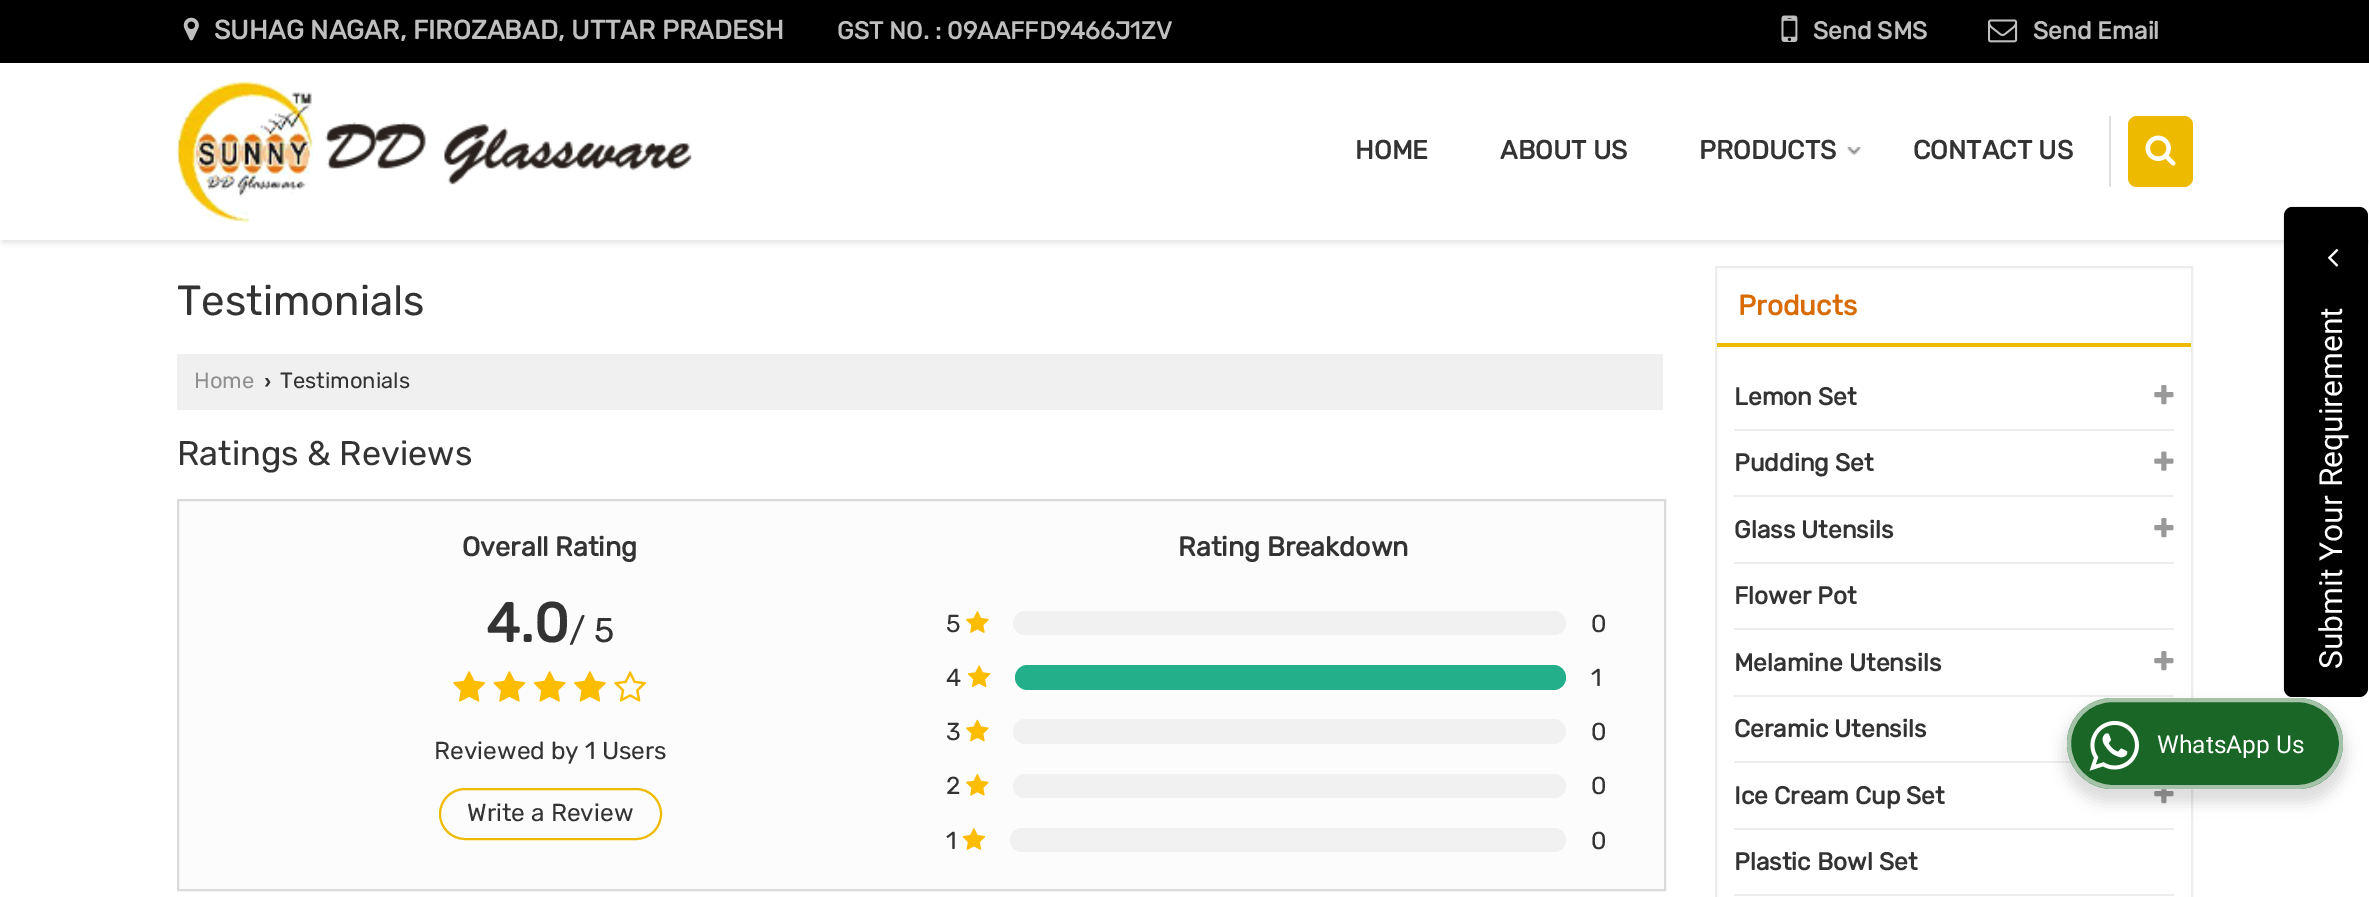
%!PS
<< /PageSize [2369 897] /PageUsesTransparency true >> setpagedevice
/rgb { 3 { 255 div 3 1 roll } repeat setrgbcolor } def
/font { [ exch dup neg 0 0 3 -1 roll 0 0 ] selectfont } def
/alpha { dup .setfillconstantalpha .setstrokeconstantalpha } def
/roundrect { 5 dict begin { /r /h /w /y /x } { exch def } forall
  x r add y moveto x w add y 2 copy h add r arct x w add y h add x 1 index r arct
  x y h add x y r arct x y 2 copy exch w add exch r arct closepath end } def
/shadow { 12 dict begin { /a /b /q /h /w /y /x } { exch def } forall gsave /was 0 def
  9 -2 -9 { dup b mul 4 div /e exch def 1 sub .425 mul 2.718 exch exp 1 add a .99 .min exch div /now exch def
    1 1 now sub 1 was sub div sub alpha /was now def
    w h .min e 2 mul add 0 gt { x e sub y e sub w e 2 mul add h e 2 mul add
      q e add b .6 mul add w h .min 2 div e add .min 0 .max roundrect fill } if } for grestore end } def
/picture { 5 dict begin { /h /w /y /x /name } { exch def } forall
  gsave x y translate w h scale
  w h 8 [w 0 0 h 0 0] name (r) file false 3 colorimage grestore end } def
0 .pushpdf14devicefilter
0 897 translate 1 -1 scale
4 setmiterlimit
255 255 255 rgb
0 0 2369 897 rectfill
gsave
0 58 moveto 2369 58 lineto 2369 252 lineto 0 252 lineto closepath 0 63 moveto 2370 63 lineto 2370 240 lineto 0 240 lineto closepath eoclip newpath
0 0 0 rgb
2 67 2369 176 0 2.5 0.1 shadow
grestore
0 0 0 rgb
0 0 2369 63 rectfill
(img/1.rgb) 183 17 16 24 picture
(img/2.rgb) 1781 15 17 27 picture
(img/3.rgb) 1988 19 30 24 picture
(img/4.rgb) 177 81 515 142 picture
(img/5.rgb) 1847 147 14 9 picture
222 222 222 rgb
2109 116 2 71 rectfill
237 186 0 rgb
2128 116 65 71 9 roundrect fill
(img/6.rgb) 2145 135 31 31 picture
240 240 240 rgb
177 354 1486 56 rectfill
252 252 252 rgb
178 500 moveto 1665 500 lineto 1665 890 lineto 178 890 lineto closepath gsave fill grestore
219 219 219 rgb
2 setlinewidth
stroke
(img/7.rgb) 453 671 33 31 picture
(img/8.rgb) 493 671 33 31 picture
(img/9.rgb) 533 671 33 31 picture
(img/10.rgb) 574 671 32 31 picture
(img/11.rgb) 614 671 33 31 picture
237 186 0 rgb
440 789 221 50 25 roundrect stroke
(img/12.rgb) 966 611 23 22 picture
241 241 241 rgb
1013 611 553 24 12 roundrect fill
(img/13.rgb) 967 665 24 23 picture
35 175 138 rgb
1015 665 551 25 12.5 roundrect fill
(img/14.rgb) 966 719 23 23 picture
241 241 241 rgb
1013 719 553 25 12.5 roundrect fill
(img/15.rgb) 966 774 23 22 picture
1013 774 553 24 12 roundrect fill
(img/16.rgb) 962 828 24 22 picture
1010 828 556 24 12 roundrect fill
237 237 237 rgb
1716 267 476 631 rectstroke
237 186 0 rgb
1717 343 474 4 rectfill
237 237 237 rgb
1734 429 440 2 rectfill
(img/17.rgb) 2154 385 20 20 picture
1734 495 440 2 rectfill
(img/18.rgb) 2154 451 20 20 picture
1734 562 440 2 rectfill
(img/17.rgb) 2154 518 20 20 picture
1734 628 440 2 rectfill
1734 695 440 2 rectfill
(img/17.rgb) 2154 651 20 20 picture
1734 761 338 2 rectfill
1734 828 440 2 rectfill
(img/19.rgb) 2154 789 20 15 picture
1734 894 440 2 rectfill
0 0 0 rgb
2063 705 284 98 49 7 0.14 shadow
2284 688 moveto 2284 216 lineto 2284 211 2288 207 2292 207 curveto 2359 207 lineto 2364 207 2368 211 2368 216 curveto 2368 688 lineto 2368 693 2364 697 2359 697 curveto 2292 697 lineto 2288 697 2284 693 2284 688 curveto closepath fill
0.13 alpha
1.8 setlinewidth
2284.5 688 moveto 2284.5 215.5 lineto 2284.5 211 2288 207.5 2292.5 207.5 curveto 2359 207.5 lineto 2363.5 207.5 2367 211 2367 215.5 curveto 2367 688 lineto 2367 692.5 2363.5 696 2359 696 curveto 2292.5 696 lineto 2288 696 2284.5 692.5 2284.5 688 curveto closepath stroke
1 alpha
(img/20.rgb) 2327 249 12 18 picture
25 102 38 rgb
2067 698 276 91 45.5 roundrect fill
0.6 alpha
255 255 255 rgb
4 setlinewidth
2069 700 272 87 43.5 roundrect stroke
1 alpha
(img/21.rgb) 2089 720 50 51 picture
/Rubik-Bold 26.5 font
191 191 191 rgb
214 39 moveto (SUHAG NAGAR, FIROZABAD, UTTAR PRADESH) show
/Rubik-Bold 24.5 font
[
  [(GST NO. : 09AAFFD9466J1ZV) 837 39]
  [(Send SMS) 1813 39]
  [(Send Email) 2033 39]
] { aload pop moveto show } forall
/Rubik-Bold 26.25 font
51 51 51 rgb
[
  [(HOME) 1355 159]
  [(ABOUT US) 1500 159]
  [(PRODUCTS) 1699 159]
  [(CONTACT US) 1913 159]
] { aload pop moveto show } forall
/Rubik-Light 42 font
177 315 moveto (Testimonials) show
/Rubik-Light 22 font
144 144 144 rgb
194 388 moveto (Home) show
/LiberationSans-Bold 22 font
51 51 51 rgb
264 388 moveto (›) show
/Rubik-Light 22 font
280 388 moveto (Testimonials) show
/Rubik-Light 34.25 font
177 465 moveto (Ratings & Reviews) show
/Rubik-Bold 27 font
462 556 moveto (Overall Rating) show
/Rubik-Bold 55 font
486 642 moveto (4.0) show
/Rubik-Light 34.25 font
569 642 moveto (/ 5) show
/Rubik-Light 24.5 font
434 759 moveto (Reviewed by 1 Users) show
467 821 moveto (Write a Review) show
/Rubik-Bold 27 font
1178 556 moveto (Rating Breakdown) show
/Rubik-Light 24.5 font
[
  [(5) 946 632]
  [(0) 1591 632]
  [(4) 946 686]
  [(1) 1591 686]
  [(3) 946 740]
  [(0) 1591 740]
  [(2) 946 794]
  [(0) 1591 794]
  [(1) 946 849]
  [(0) 1591 849]
] { aload pop moveto show } forall
/Rubik-Bold 28 font
216 107 3 rgb
1738 315 moveto (Products) show
/Rubik-Bold 24.5 font
51 51 51 rgb
[
  [(Lemon Set) 1734 405]
  [(Pudding Set) 1734 471]
  [(Glass Utensils) 1734 538]
  [(Flower Pot) 1734 604]
  [(Melamine Utensils) 1734 671]
  [(Ceramic Utensils) 1734 737]
  [(Ice Cream Cup Set) 1734 804]
  [(Plastic Bowl Set) 1734 870]
] { aload pop moveto show } forall
/Roboto-Regular 31.8 font
255 255 255 rgb
gsave 2342 669 translate -90 rotate 0 0 moveto (Submit Your Requirement) show grestore
/Roboto-Regular 24.5 font
2157 753 moveto (WhatsApp Us) show
.poppdf14devicefilter showpage
